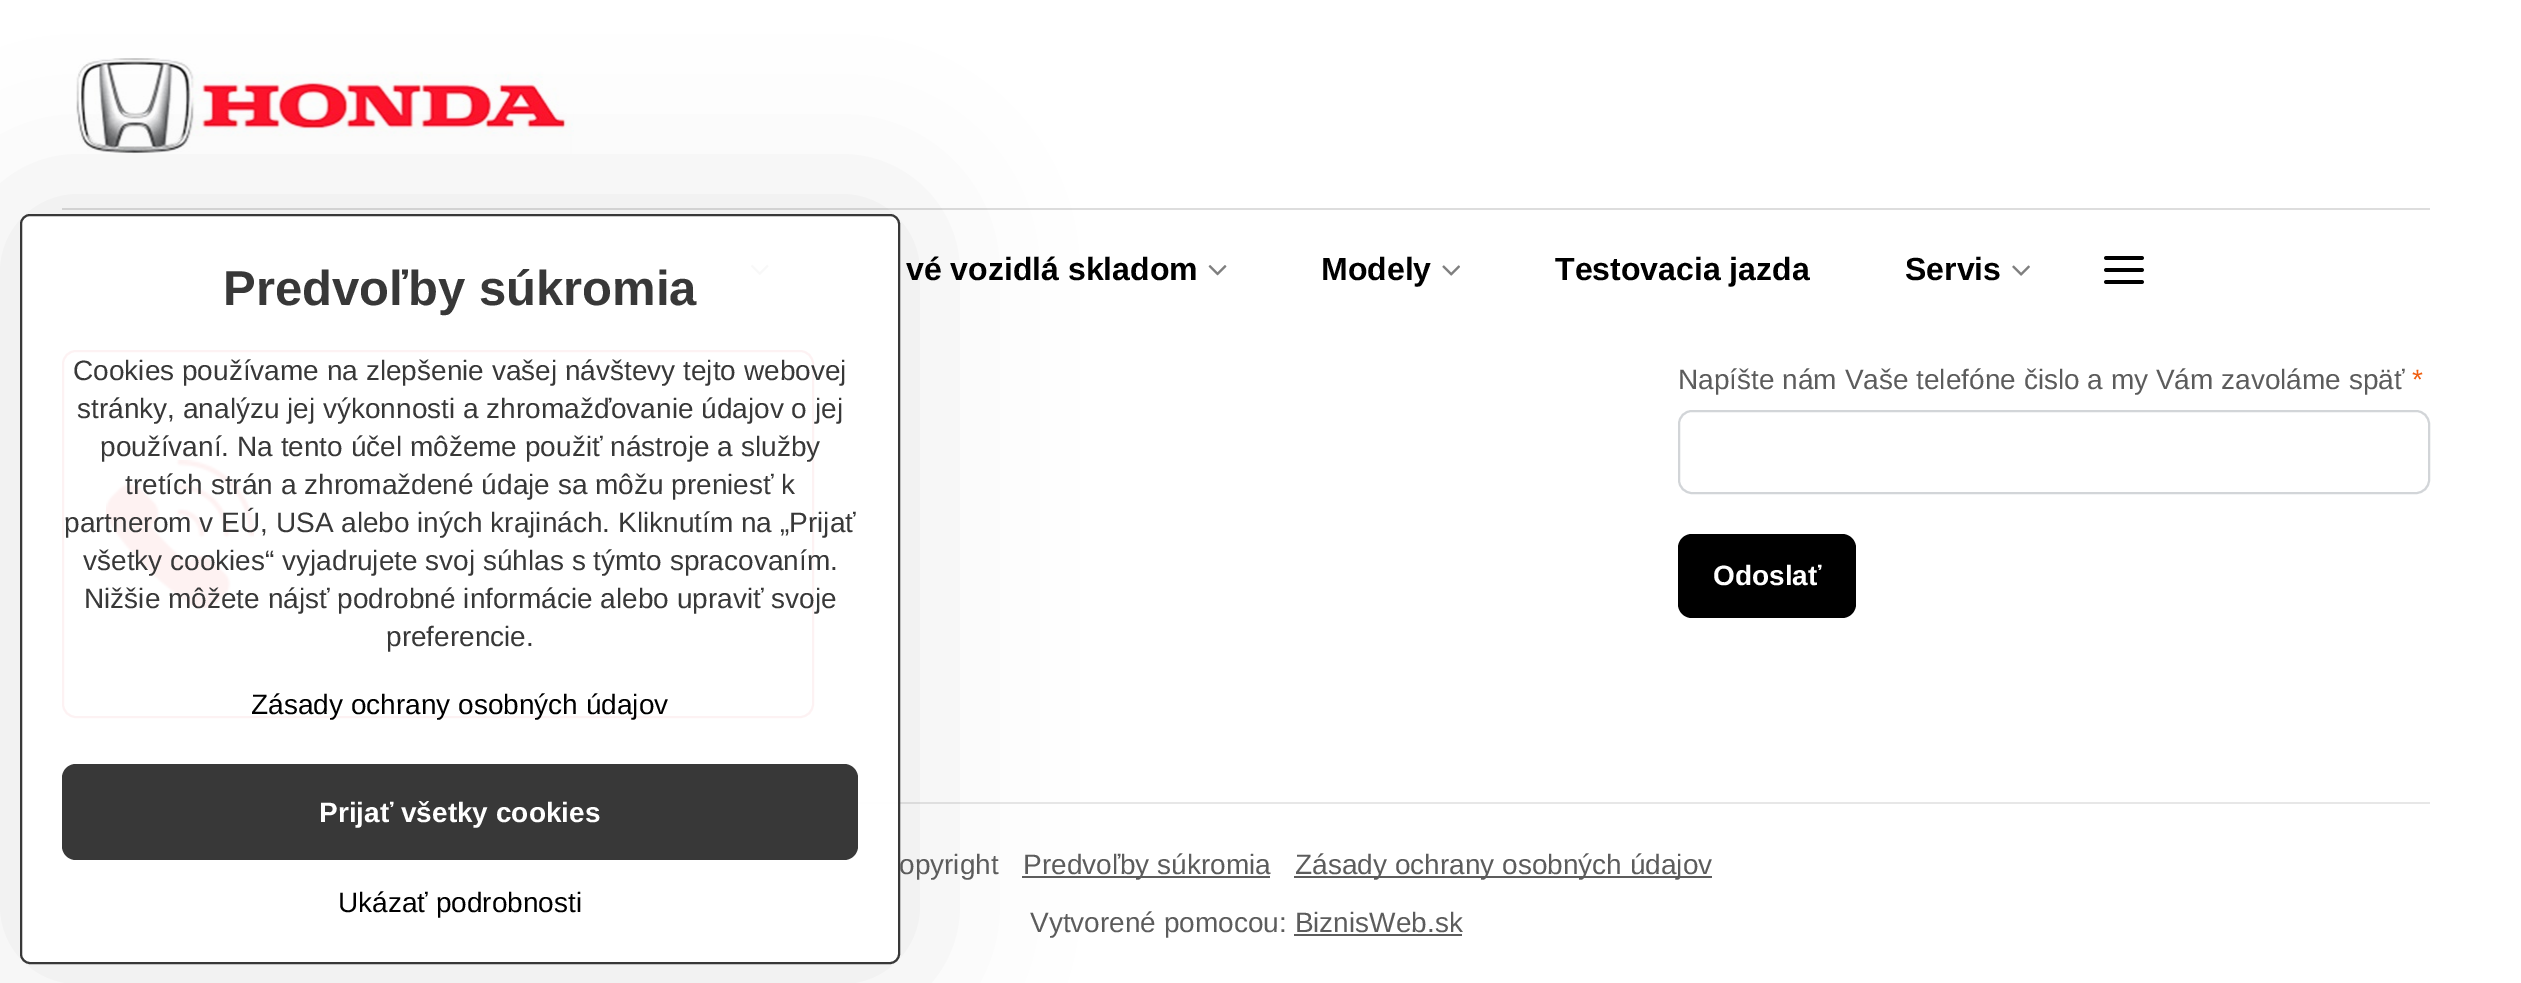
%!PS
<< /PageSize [2521 983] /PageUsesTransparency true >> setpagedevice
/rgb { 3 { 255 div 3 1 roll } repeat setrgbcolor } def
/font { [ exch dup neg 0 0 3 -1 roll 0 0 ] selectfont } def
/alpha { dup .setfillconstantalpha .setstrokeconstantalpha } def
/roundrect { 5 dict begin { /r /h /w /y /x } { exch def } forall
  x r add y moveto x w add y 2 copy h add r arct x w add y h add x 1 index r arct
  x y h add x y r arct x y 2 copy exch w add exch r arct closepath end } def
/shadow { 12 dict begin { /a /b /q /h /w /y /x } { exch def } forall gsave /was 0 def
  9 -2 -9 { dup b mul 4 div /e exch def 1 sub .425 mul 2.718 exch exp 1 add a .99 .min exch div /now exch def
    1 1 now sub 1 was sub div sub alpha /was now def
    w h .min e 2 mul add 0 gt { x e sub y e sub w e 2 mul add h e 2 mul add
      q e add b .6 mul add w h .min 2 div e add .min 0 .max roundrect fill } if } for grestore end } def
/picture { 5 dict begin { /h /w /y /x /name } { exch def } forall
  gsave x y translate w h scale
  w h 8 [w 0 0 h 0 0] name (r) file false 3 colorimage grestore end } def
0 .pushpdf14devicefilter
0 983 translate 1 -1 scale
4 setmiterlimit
255 255 255 rgb
0 0 2521 983 rectfill
(img/1.rgb) 76 58 498 96 picture
221 221 221 rgb
62 208 2368 2 rectfill
(img/2.rgb) 750 264 19 12 picture
224 0 15 rgb
2 setlinewidth
63 351 750 366 13 roundrect stroke
(img/7.rgb) 106 460 148 148 picture
231 231 231 rgb
858 802 1572 2 rectfill
92 92 92 rgb
1022 876 248 2 rectfill
gsave
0 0 moveto 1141 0 lineto 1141 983 lineto 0 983 lineto closepath 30 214 moveto 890 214 lineto 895.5 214 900 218.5 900 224 curveto 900 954 lineto 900 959.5 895.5 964 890 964 curveto 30 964 lineto 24.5 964 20 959.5 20 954 curveto 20 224 lineto 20 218.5 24.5 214 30 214 curveto closepath eoclip newpath
0 0 0 rgb
20 214 880 750 10 80 0.1 shadow
grestore
0.95 alpha
255 255 255 rgb
21 215 878 748 9 roundrect fill
1 alpha
56 56 56 rgb
21 215 878 748 9 roundrect stroke
62 764 796 96 14 roundrect fill
(img/3.rgb) 1208 265 19 11 picture
(img/4.rgb) 1442 265 18 11 picture
(img/5.rgb) 2012 265 18 11 picture
(img/6.rgb) 2104 256 40 28 picture
210 213 216 rgb
1679 411 750 82 13 roundrect stroke
0 0 0 rgb
1678 534 178 84 14 roundrect fill
92 92 92 rgb
1294 876 418 2 rectfill
1294 934 168 2 rectfill
/LiberationSans-Bold 49 font
56 56 56 rgb
223 305 moveto (Predvoľby súkromia) show
/LiberationSans-Regular 28 font
[
  [(Cookies používame na zlepšenie vašej návštevy tejto webovej) 73 380]
  [(stránky, analýzu jej výkonnosti a zhromažďovanie údajov o jej) 77 418]
  [(používaní. Na tento účel môžeme použiť nástroje a služby) 100 456]
  [(tretích strán a zhromaždené údaje sa môžu preniesť k) 125 494]
  [(partnerom v EÚ, USA alebo iných krajinách. Kliknutím na „Prijať) 64 532]
  [(všetky cookies“ vyjadrujete svoj súhlas s týmto spracovaním.) 83 570]
  [(Nižšie môžete nájsť podrobné informácie alebo upraviť svoje) 84 608]
  [(preferencie.) 386 646]
] { aload pop moveto show } forall
0 0 0 rgb
251 714 moveto (Zásady ochrany osobných údajov) show
/LiberationSans-Bold 28 font
255 255 255 rgb
319 822 moveto (Prijať všetky cookies) show
/LiberationSans-Regular 28 font
0 0 0 rgb
338 912 moveto (Ukázať podrobnosti) show
/LiberationSans-Bold 32 font
[
  [(vé vozidlá skladom) 906 280]
  [(Modely) 1321 280]
  [(Testovacia jazda) 1555 280]
  [(Servis) 1905 280]
] { aload pop moveto show } forall
/LiberationSans-Regular 28 font
92 92 92 rgb
1678 389 moveto (Napíšte nám Vaše telefóne čislo a my Vám zavoláme späť) show
240 94 15 rgb
2412 389 moveto (*) show
/LiberationSans-Bold 28 font
255 255 255 rgb
1713 585 moveto (Odoslať) show
/LiberationSans-Regular 28 font
92 92 92 rgb
[
  [(opyright) 899 874]
  [(Predvoľby súkromia) 1023 874]
  [(Zásady ochrany osobných údajov) 1295 874]
  [(Vytvorené pomocou: BiznisWeb.sk) 1030 932]
] { aload pop moveto show } forall
.poppdf14devicefilter showpage
